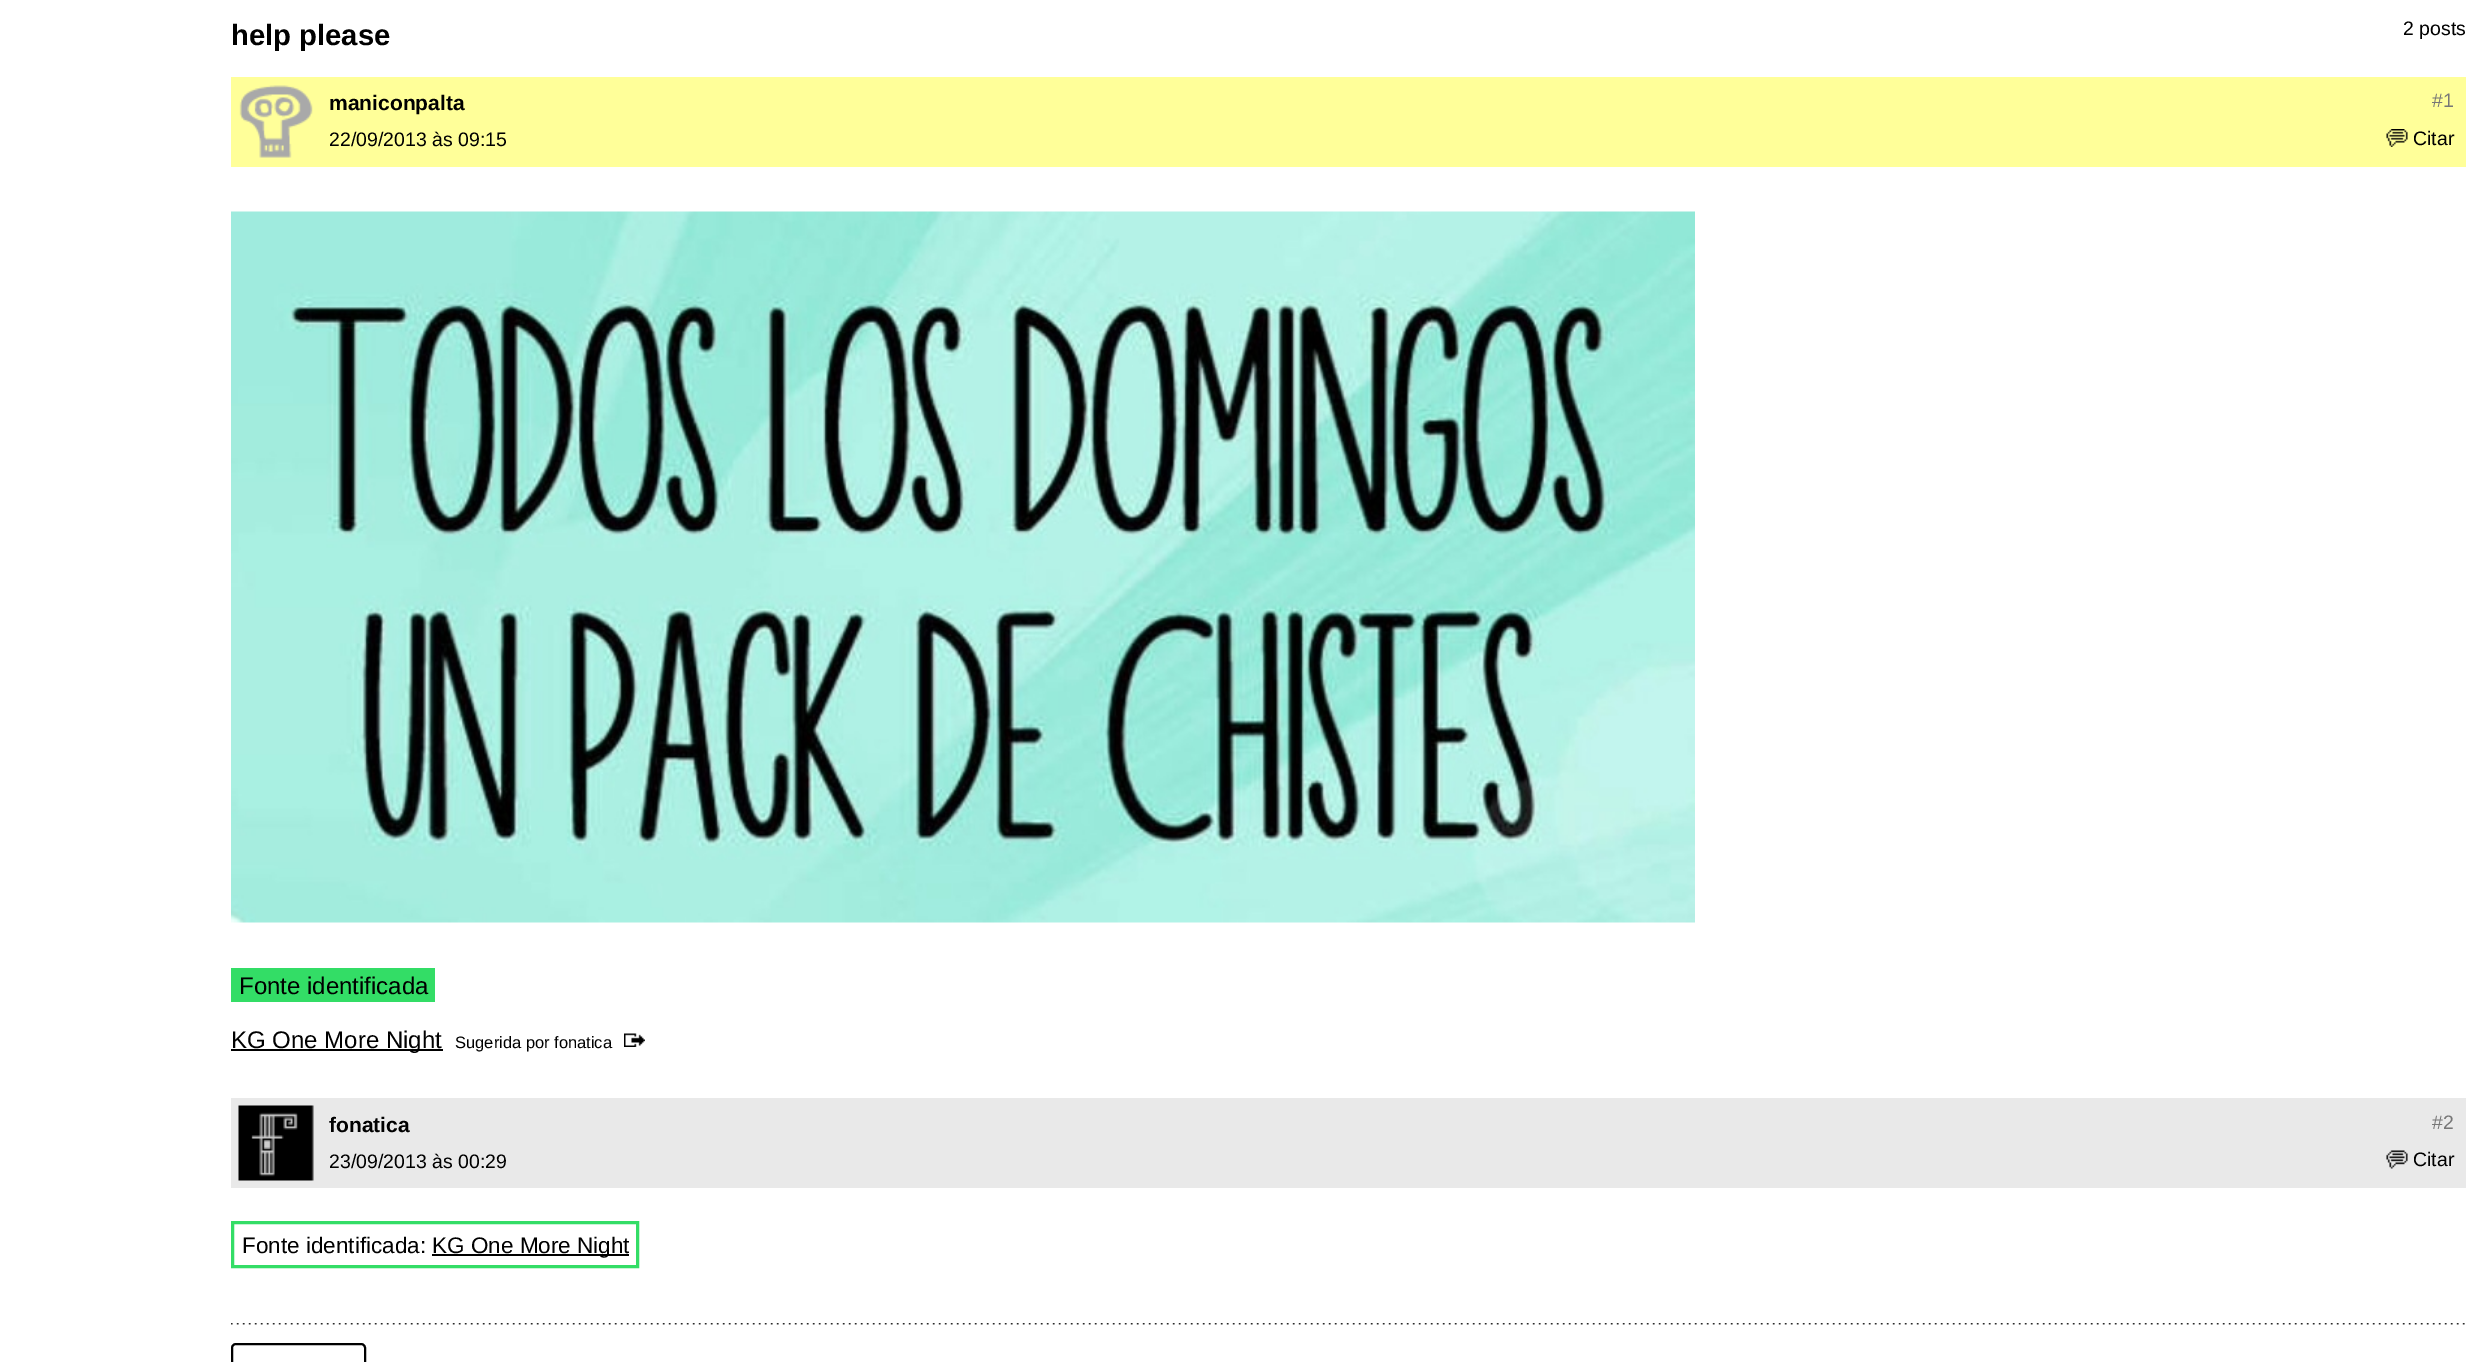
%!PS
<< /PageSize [2486 1362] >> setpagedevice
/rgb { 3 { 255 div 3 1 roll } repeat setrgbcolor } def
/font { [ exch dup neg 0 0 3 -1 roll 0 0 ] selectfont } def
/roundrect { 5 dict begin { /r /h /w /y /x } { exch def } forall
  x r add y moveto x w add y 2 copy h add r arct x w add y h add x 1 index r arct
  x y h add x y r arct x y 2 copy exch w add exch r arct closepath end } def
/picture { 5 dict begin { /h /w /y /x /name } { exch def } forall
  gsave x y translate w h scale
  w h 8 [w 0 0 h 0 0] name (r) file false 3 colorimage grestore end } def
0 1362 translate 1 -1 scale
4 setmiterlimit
255 255 255 rgb
0 0 2486 1362 rectfill
255 255 153 rgb
231 77 2235 90 rectfill
(img/1.rgb) 239 85 74 73 picture
(img/2.rgb) 2386 129 22 18 picture
(img/3.rgb) 231 211 1464 712 picture
51 221 102 rgb
231 968 204 34 rectfill
0 0 0 rgb
231 1049 212 2 rectfill
(img/4.rgb) 624 1033 21 14 picture
233 233 233 rgb
231 1098 2235 90 rectfill
(img/5.rgb) 238 1105 76 76 picture
(img/6.rgb) 2386 1150 22 19 picture
51 221 102 rgb
3 setlinewidth
232.5 1222.5 405 44 rectstroke
0 0 0 rgb
432 1254 197 2 rectfill
(img/7.rgb) 231 1323 2234 2 picture
2 setlinewidth
232 1344 133 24 4 roundrect stroke
/LiberationSans-Bold 29.25 font
231 45 moveto (help please) show
/LiberationSans-Regular 19.5 font
2403 35 moveto (2 posts) show
/LiberationSans-Bold 21 font
329 110 moveto (maniconpalta) show
/LiberationSans-Regular 19.5 font
119 119 119 rgb
2432 107 moveto (#1) show
0 0 0 rgb
329 146 moveto (22/09/2013 às 09:15) show
2413 145 moveto (Citar) show
/LiberationSans-Regular 24 font
239 994 moveto (Fonte identificada) show
231 1048 moveto (KG One More Night) show
/LiberationSans-Regular 16.5 font
455 1048 moveto (Sugerida por fonatica) show
/LiberationSans-Bold 21 font
329 1132 moveto (fonatica) show
/LiberationSans-Regular 19.5 font
119 119 119 rgb
2432 1129 moveto (#2) show
0 0 0 rgb
329 1168 moveto (23/09/2013 às 00:29) show
2413 1166 moveto (Citar) show
/LiberationSans-Regular 22.5 font
242 1253 moveto (Fonte identificada:) show
432 1253 moveto (KG One More Night) show
showpage
